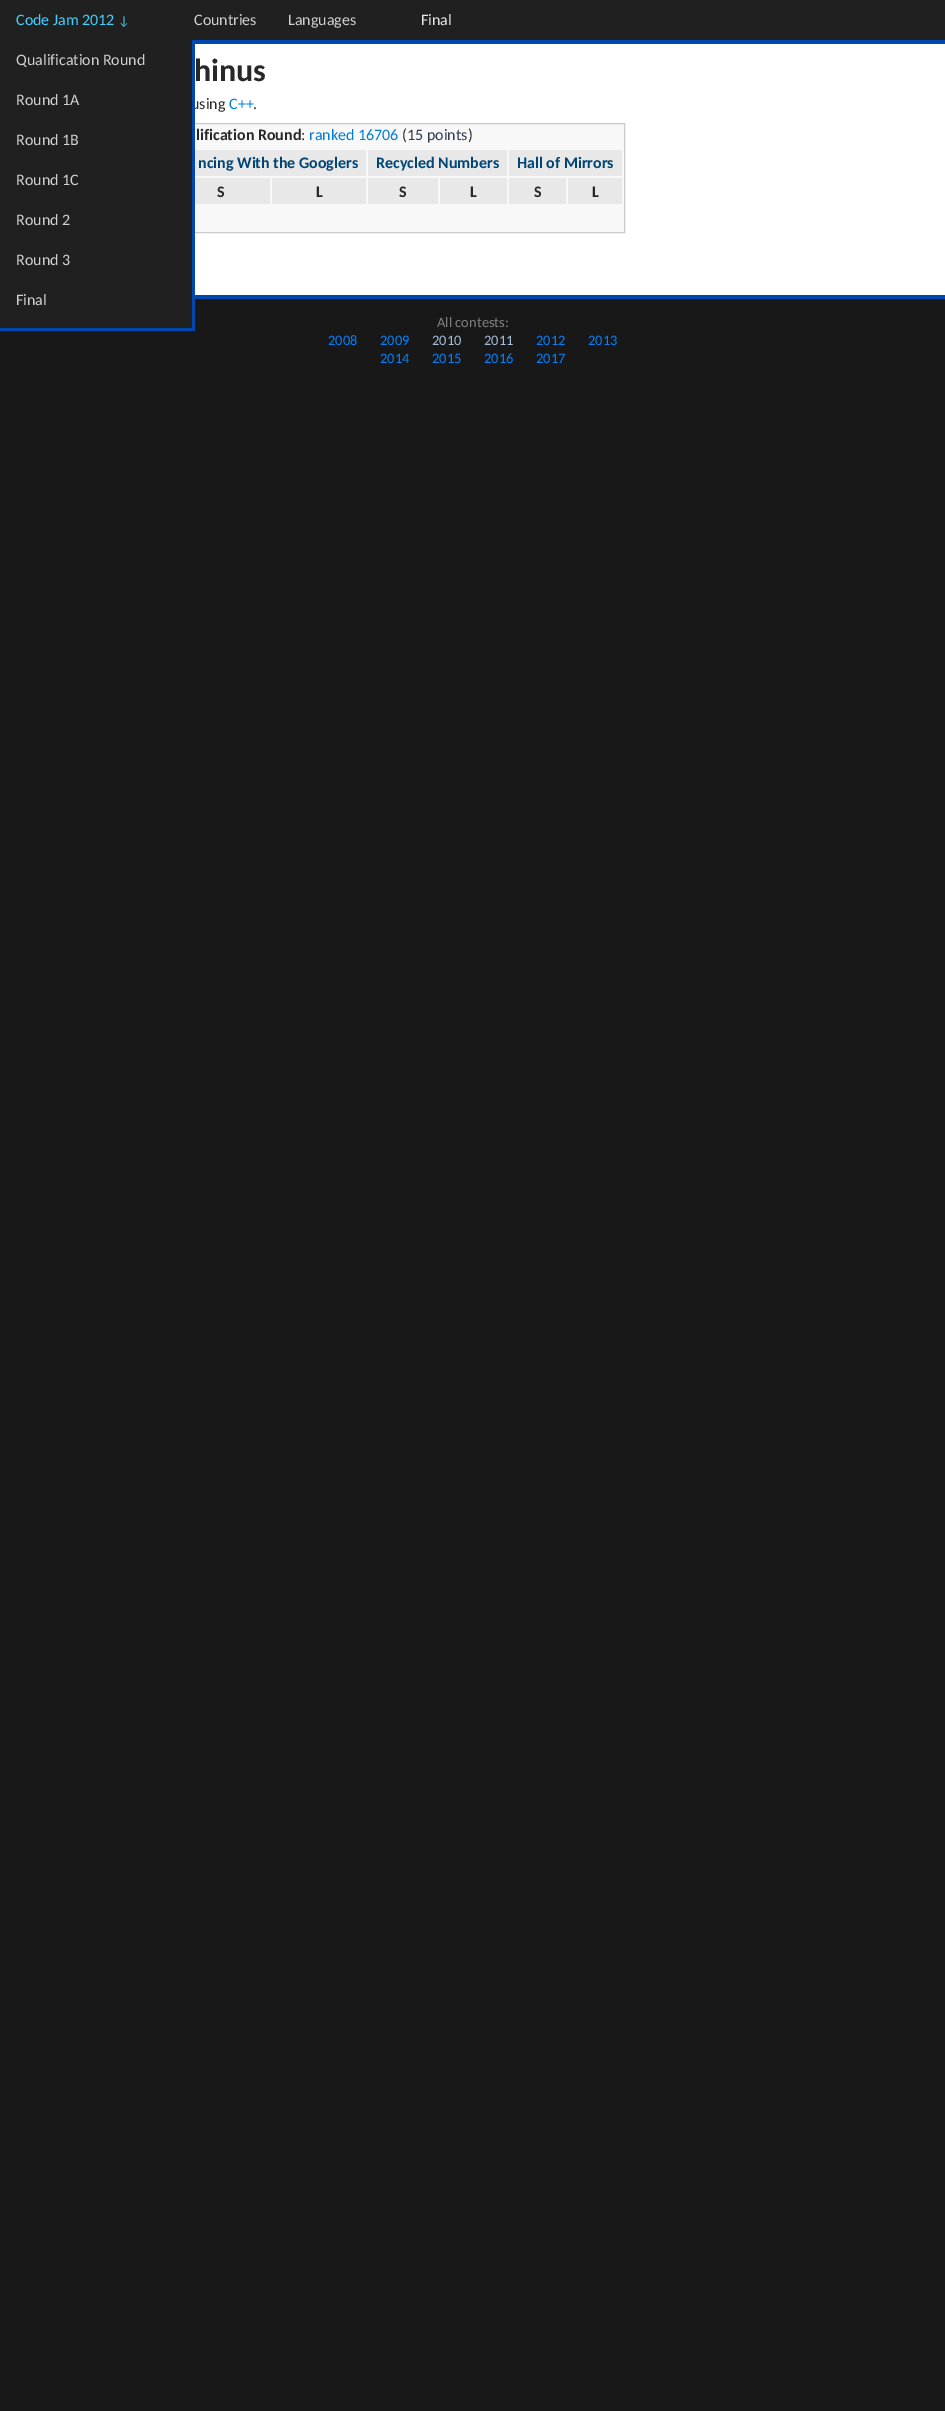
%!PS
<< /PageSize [945 2411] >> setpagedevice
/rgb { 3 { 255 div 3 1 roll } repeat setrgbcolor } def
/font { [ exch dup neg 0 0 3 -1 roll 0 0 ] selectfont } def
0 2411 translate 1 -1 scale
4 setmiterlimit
24 24 24 rgb
0 0 945 2411 rectfill
[
  [0 0 945 40 32 32 32]
  [195 44 750 251 255 255 255]
  [195 40 750 4 0 72 176]
  [195 295 750 4 0 72 176]
  [195 124 429 108 248 248 248]
] { aload pop rgb rectfill } forall
202 202 202 rgb
16.5 123.5 608 109 rectstroke
[
  [195 150 171 26 232 232 232]
  [368 150 139 26 232 232 232]
  [509 150 113 26 232 232 232]
  [195 178 75 26 232 232 232]
  [272 178 94 26 232 232 232]
  [368 178 70 26 232 232 232]
  [440 178 67 26 232 232 232]
  [509 178 57 26 232 232 232]
  [568 178 54 26 232 232 232]
] { aload pop rgb rectfill } forall
/Carlito-Regular 16 font
64 207 255 rgb
16 25 moveto (Code Jam 2012) show
/Carlito-Regular 13 font
118 25 moveto (↓) show
/Carlito-Regular 16 font
208 208 208 rgb
194 25 moveto (Countries) show
288 25 moveto (Languages) show
232 232 232 rgb
421 25 moveto (Final) show
/Carlito-Bold 32 font
40 40 40 rgb
194 81 moveto (hinus) show
/Carlito-Regular 16 font
191 109 moveto (using) show
32 32 32 rgb
0 40 192 288 rectfill
208 208 208 rgb
[
  [(Final) 16 305]
  [(Round 3) 16 265]
  [(Round 2) 16 225]
  [(Round 1C) 16 185]
  [(Round 1B) 16 145]
  [(Round 1A) 16 105]
  [(Qualification Round) 16 65]
] { aload pop moveto show } forall
0 72 176 rgb
192 40 3 291 rectfill
0 328 195 3 rectfill
0 126 217 rgb
229 109 moveto (C++) show
40 40 40 rgb
253 109 moveto (.) show
/Carlito-Bold 16 font
196 140 moveto (lification Round) show
/Carlito-Regular 16 font
301 140 moveto (:) show
0 126 217 rgb
309 140 moveto (ranked 16706) show
40 40 40 rgb
402 140 moveto (\() show
46 58 77 rgb
407 140 moveto (15 points) show
40 40 40 rgb
468 140 moveto (\)) show
/Carlito-Bold 16 font
0 69 117 rgb
[
  [(ncing With the Googlers) 198 168]
  [(Recycled Numbers) 376 168]
  [(Hall of Mirrors) 517 168]
] { aload pop moveto show } forall
40 40 40 rgb
[
  [(S) 217 197]
  [(L) 316 197]
  [(S) 399 197]
  [(L) 470 197]
  [(S) 534 197]
  [(L) 592 197]
] { aload pop moveto show } forall
/Carlito-Regular 14.5 font
128 128 128 rgb
437 327 moveto (All contests:) show
0 128 255 rgb
328 345 moveto (2008) show
380 345 moveto (2009) show
163 190 217 rgb
432 345 moveto (2010) show
484 345 moveto (2011) show
0 128 255 rgb
[
  [(2012) 536 345]
  [(2013) 588 345]
  [(2014) 380 363]
  [(2015) 432 363]
  [(2016) 484 363]
  [(2017) 536 363]
] { aload pop moveto show } forall
showpage
